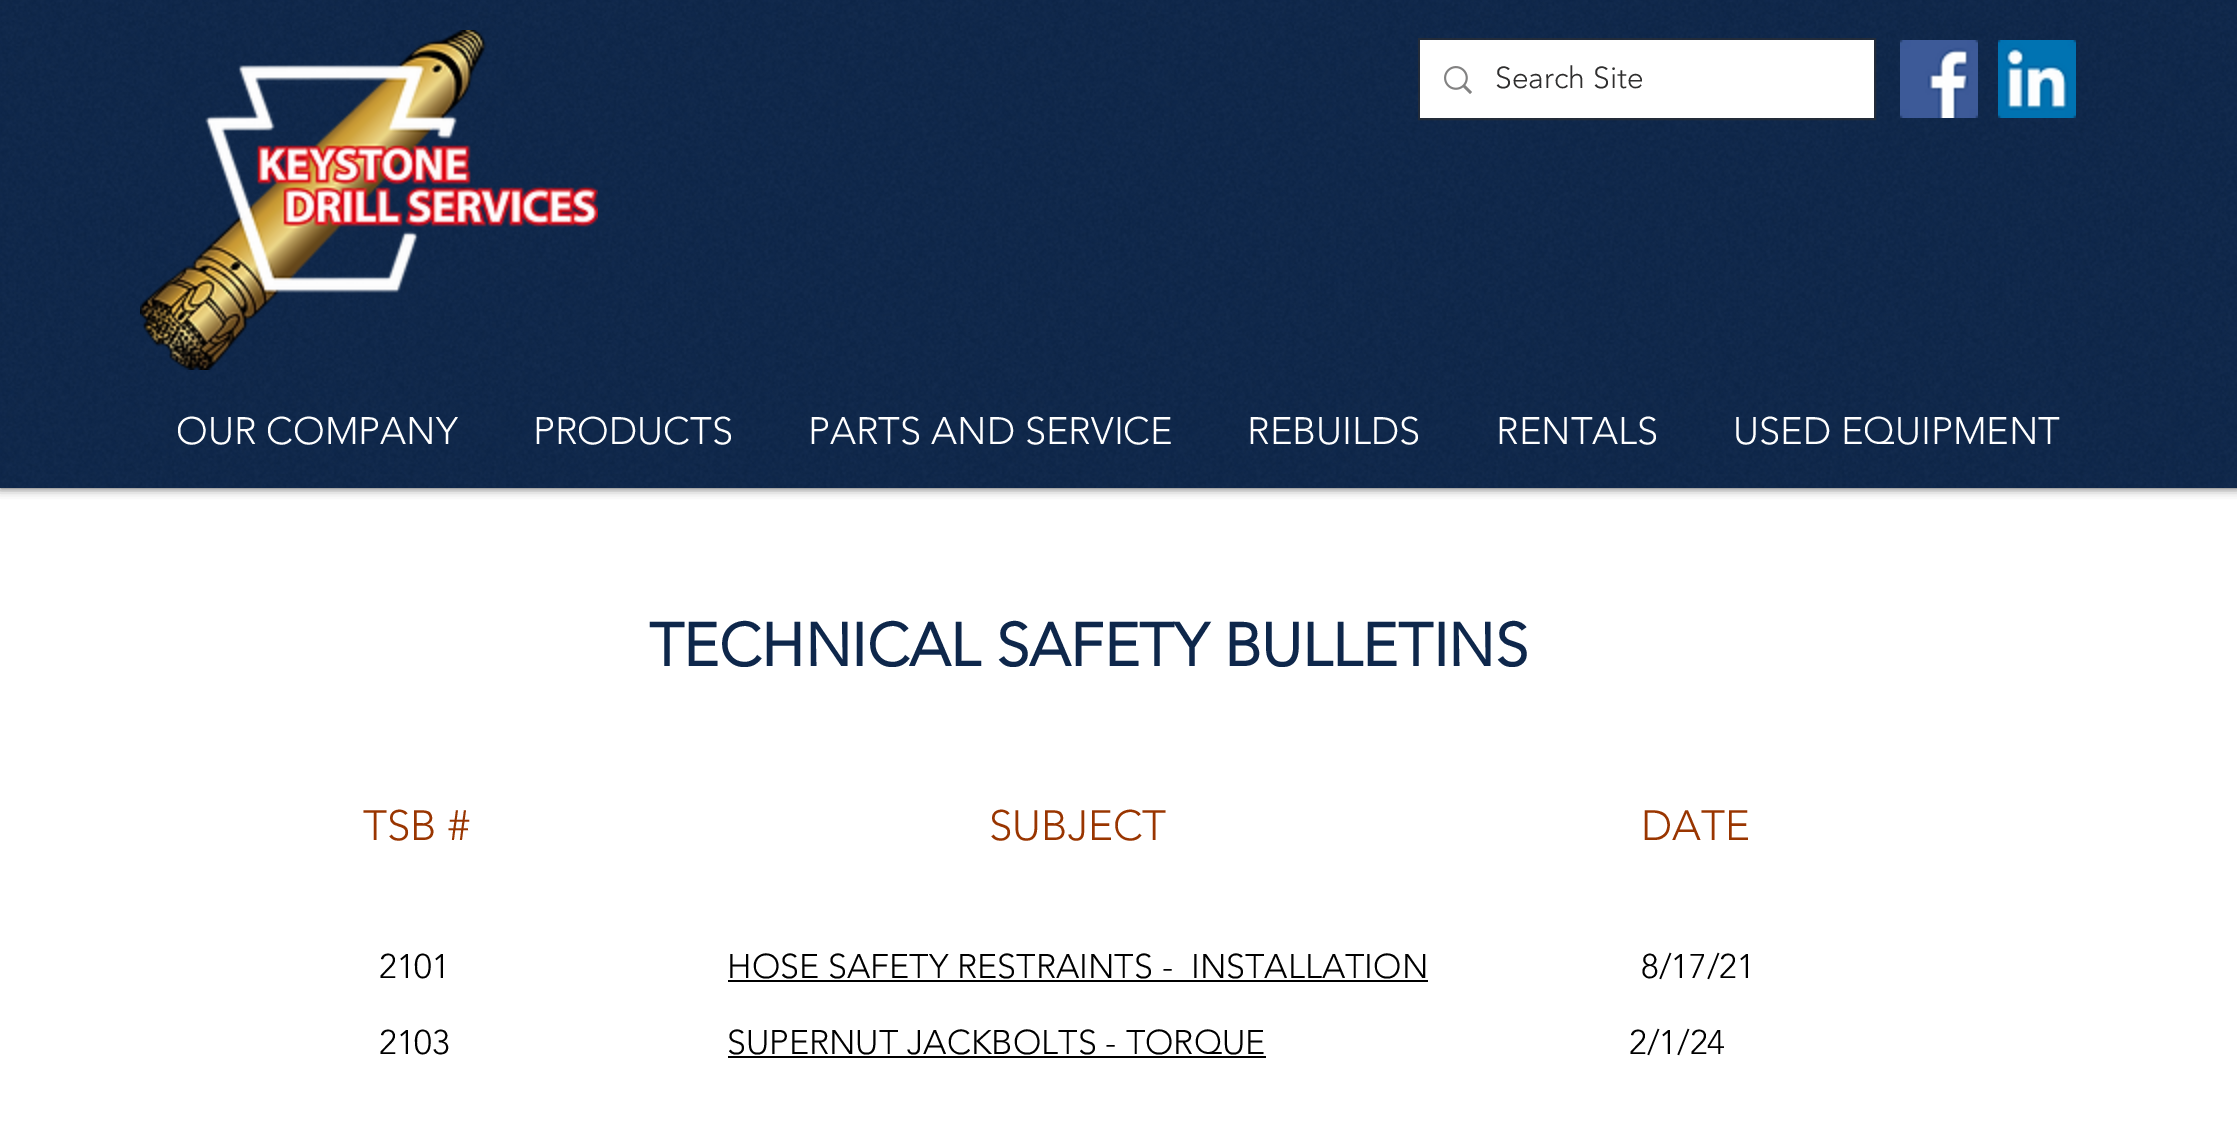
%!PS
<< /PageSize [2237 1125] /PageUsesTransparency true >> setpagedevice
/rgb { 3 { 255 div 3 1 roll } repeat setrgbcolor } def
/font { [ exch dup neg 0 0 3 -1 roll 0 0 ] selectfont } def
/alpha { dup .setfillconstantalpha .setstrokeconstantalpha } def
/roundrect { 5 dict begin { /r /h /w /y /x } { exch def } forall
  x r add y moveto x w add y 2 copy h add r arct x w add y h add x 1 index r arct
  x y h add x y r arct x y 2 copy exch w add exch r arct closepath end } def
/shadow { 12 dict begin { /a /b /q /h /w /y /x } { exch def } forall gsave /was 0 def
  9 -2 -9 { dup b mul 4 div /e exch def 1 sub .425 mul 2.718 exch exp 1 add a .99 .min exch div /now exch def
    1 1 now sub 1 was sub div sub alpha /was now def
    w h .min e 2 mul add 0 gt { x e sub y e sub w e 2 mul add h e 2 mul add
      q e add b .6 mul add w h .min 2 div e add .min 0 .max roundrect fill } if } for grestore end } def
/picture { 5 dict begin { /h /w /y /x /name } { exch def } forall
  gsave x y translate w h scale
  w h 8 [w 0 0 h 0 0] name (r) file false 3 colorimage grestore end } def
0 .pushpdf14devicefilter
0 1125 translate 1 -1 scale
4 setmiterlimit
255 255 255 rgb
0 0 2237 1125 rectfill
0 0 0 rgb
0 0 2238 488 0 5 0.7 shadow
14 39 75 rgb
0 0 2237 488 rectfill
(img/1.rgb) 0 0 2237 488 picture
(img/2.rgb) 140 30 458 340 picture
0.6 alpha
47 46 46 rgb
2 setlinewidth
1419 39 456 80 rectstroke
1 alpha
255 255 255 rgb
1420 40 454 78 rectfill
(img/3.rgb) 1444 66 28 28 picture
(img/4.rgb) 1900 40 78 78 picture
(img/5.rgb) 1998 40 78 78 picture
0 0 0 rgb
728 980 700 2 rectfill
728 1056 538 2 rectfill
/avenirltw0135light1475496-Light 30 font
47 46 46 rgb
1495 88 moveto (Search Site) show
/avenirltw0135light1475496-Light 38 font
255 255 255 rgb
[
  [(OUR COMPANY) 176 444]
  [(PRODUCTS) 533 444]
  [(PARTS AND SERVICE) 808 444]
  [(REBUILDS) 1247 444]
  [(RENTALS) 1496 444]
  [(USED EQUIPMENT) 1733 444]
] { aload pop moveto show } forall
/avenirltw0135light1475496-Bold 60 font
14 39 75 rgb
649 666 moveto (TECHNICAL SAFETY BULLETINS) show
/avenirltw0135light1475496-Light 42 font
153 53 0 rgb
[
  [(TSB #) 363 840]
  [(SUBJECT) 989 840]
  [(DATE) 1641 840]
] { aload pop moveto show } forall
/avenirltw0135light1475496-Light 34 font
0 0 0 rgb
[
  [(2101) 379 978]
  [(HOSE SAFETY RESTRAINTS -  INSTALLATION) 727 978]
  [(8/17/21) 1641 978]
  [(2103) 379 1054]
  [(SUPERNUT JACKBOLTS - TORQUE) 727 1054]
  [(2/1/24) 1629 1054]
] { aload pop moveto show } forall
.poppdf14devicefilter showpage
